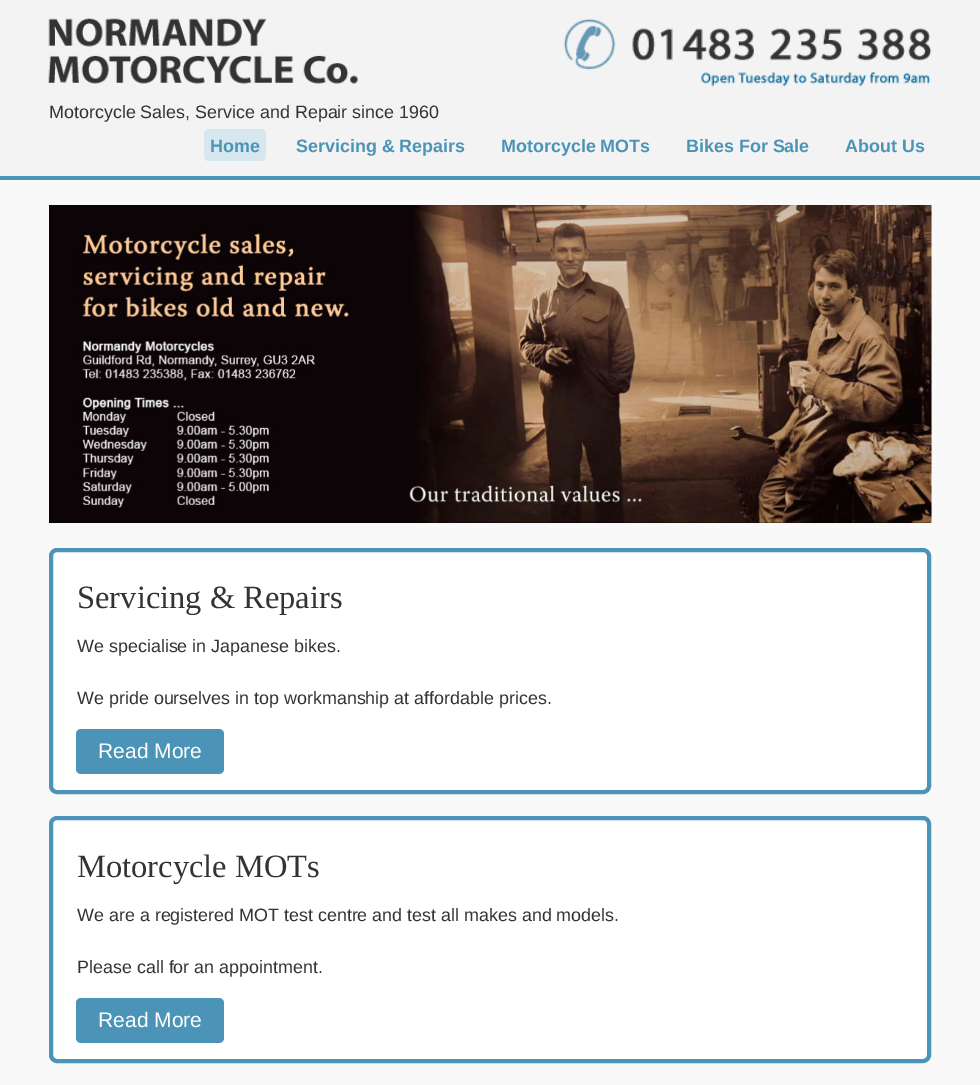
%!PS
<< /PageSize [980 1085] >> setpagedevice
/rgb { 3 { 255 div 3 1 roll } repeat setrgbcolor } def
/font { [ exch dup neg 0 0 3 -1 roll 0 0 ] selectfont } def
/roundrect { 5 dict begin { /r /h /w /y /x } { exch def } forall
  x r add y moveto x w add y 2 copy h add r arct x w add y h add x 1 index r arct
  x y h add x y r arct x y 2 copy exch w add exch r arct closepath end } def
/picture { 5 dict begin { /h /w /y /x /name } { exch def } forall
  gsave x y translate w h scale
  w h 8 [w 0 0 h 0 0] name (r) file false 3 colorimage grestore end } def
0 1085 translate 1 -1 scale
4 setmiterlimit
249 249 249 rgb
0 0 980 1085 rectfill
243 243 243 rgb
0 0 980 176 rectfill
76 148 183 rgb
0 176 980 4 rectfill
(img/1.rgb) 48 18 310 66 picture
(img/2.rgb) 563 18 369 69 picture
214 231 239 rgb
204 129 62 32 5 roundrect fill
(img/3.rgb) 49 205 883 318 picture
255 255 255 rgb
51 550 878 242 6 roundrect gsave fill grestore
76 148 183 rgb
4 setlinewidth
stroke
76 729 148 45 5 roundrect fill
255 255 255 rgb
51 818 878 243 6 roundrect gsave fill grestore
76 148 183 rgb
stroke
76 998 148 45 5 roundrect fill
/LiberationSans-Regular 17.9 font
51 51 51 rgb
49 118 moveto (Motorcycle Sales, Service and Repair since 1960) show
/LiberationSans-Bold 17.9 font
76 148 183 rgb
[
  [(Home) 210 152]
  [(Servicing & Repairs) 296 152]
  [(Motorcycle MOTs) 501 152]
  [(Bikes For Sale) 686 152]
  [(About Us) 845 152]
] { aload pop moveto show } forall
/LiberationSerif-Regular 32.5 font
51 51 51 rgb
77 608 moveto (Servicing & Repairs) show
/LiberationSans-Regular 17.9 font
77 652 moveto (We specialise in Japanese bikes.) show
77 704 moveto (We pride ourselves in top workmanship at affordable prices.) show
/LiberationSans-Regular 21 font
255 255 255 rgb
98 758 moveto (Read More) show
/LiberationSerif-Regular 32.5 font
51 51 51 rgb
77 877 moveto (Motorcycle MOTs) show
/LiberationSans-Regular 17.9 font
77 921 moveto (We are a registered MOT test centre and test all makes and models.) show
77 973 moveto (Please call for an appointment.) show
/LiberationSans-Regular 21 font
255 255 255 rgb
98 1027 moveto (Read More) show
showpage
